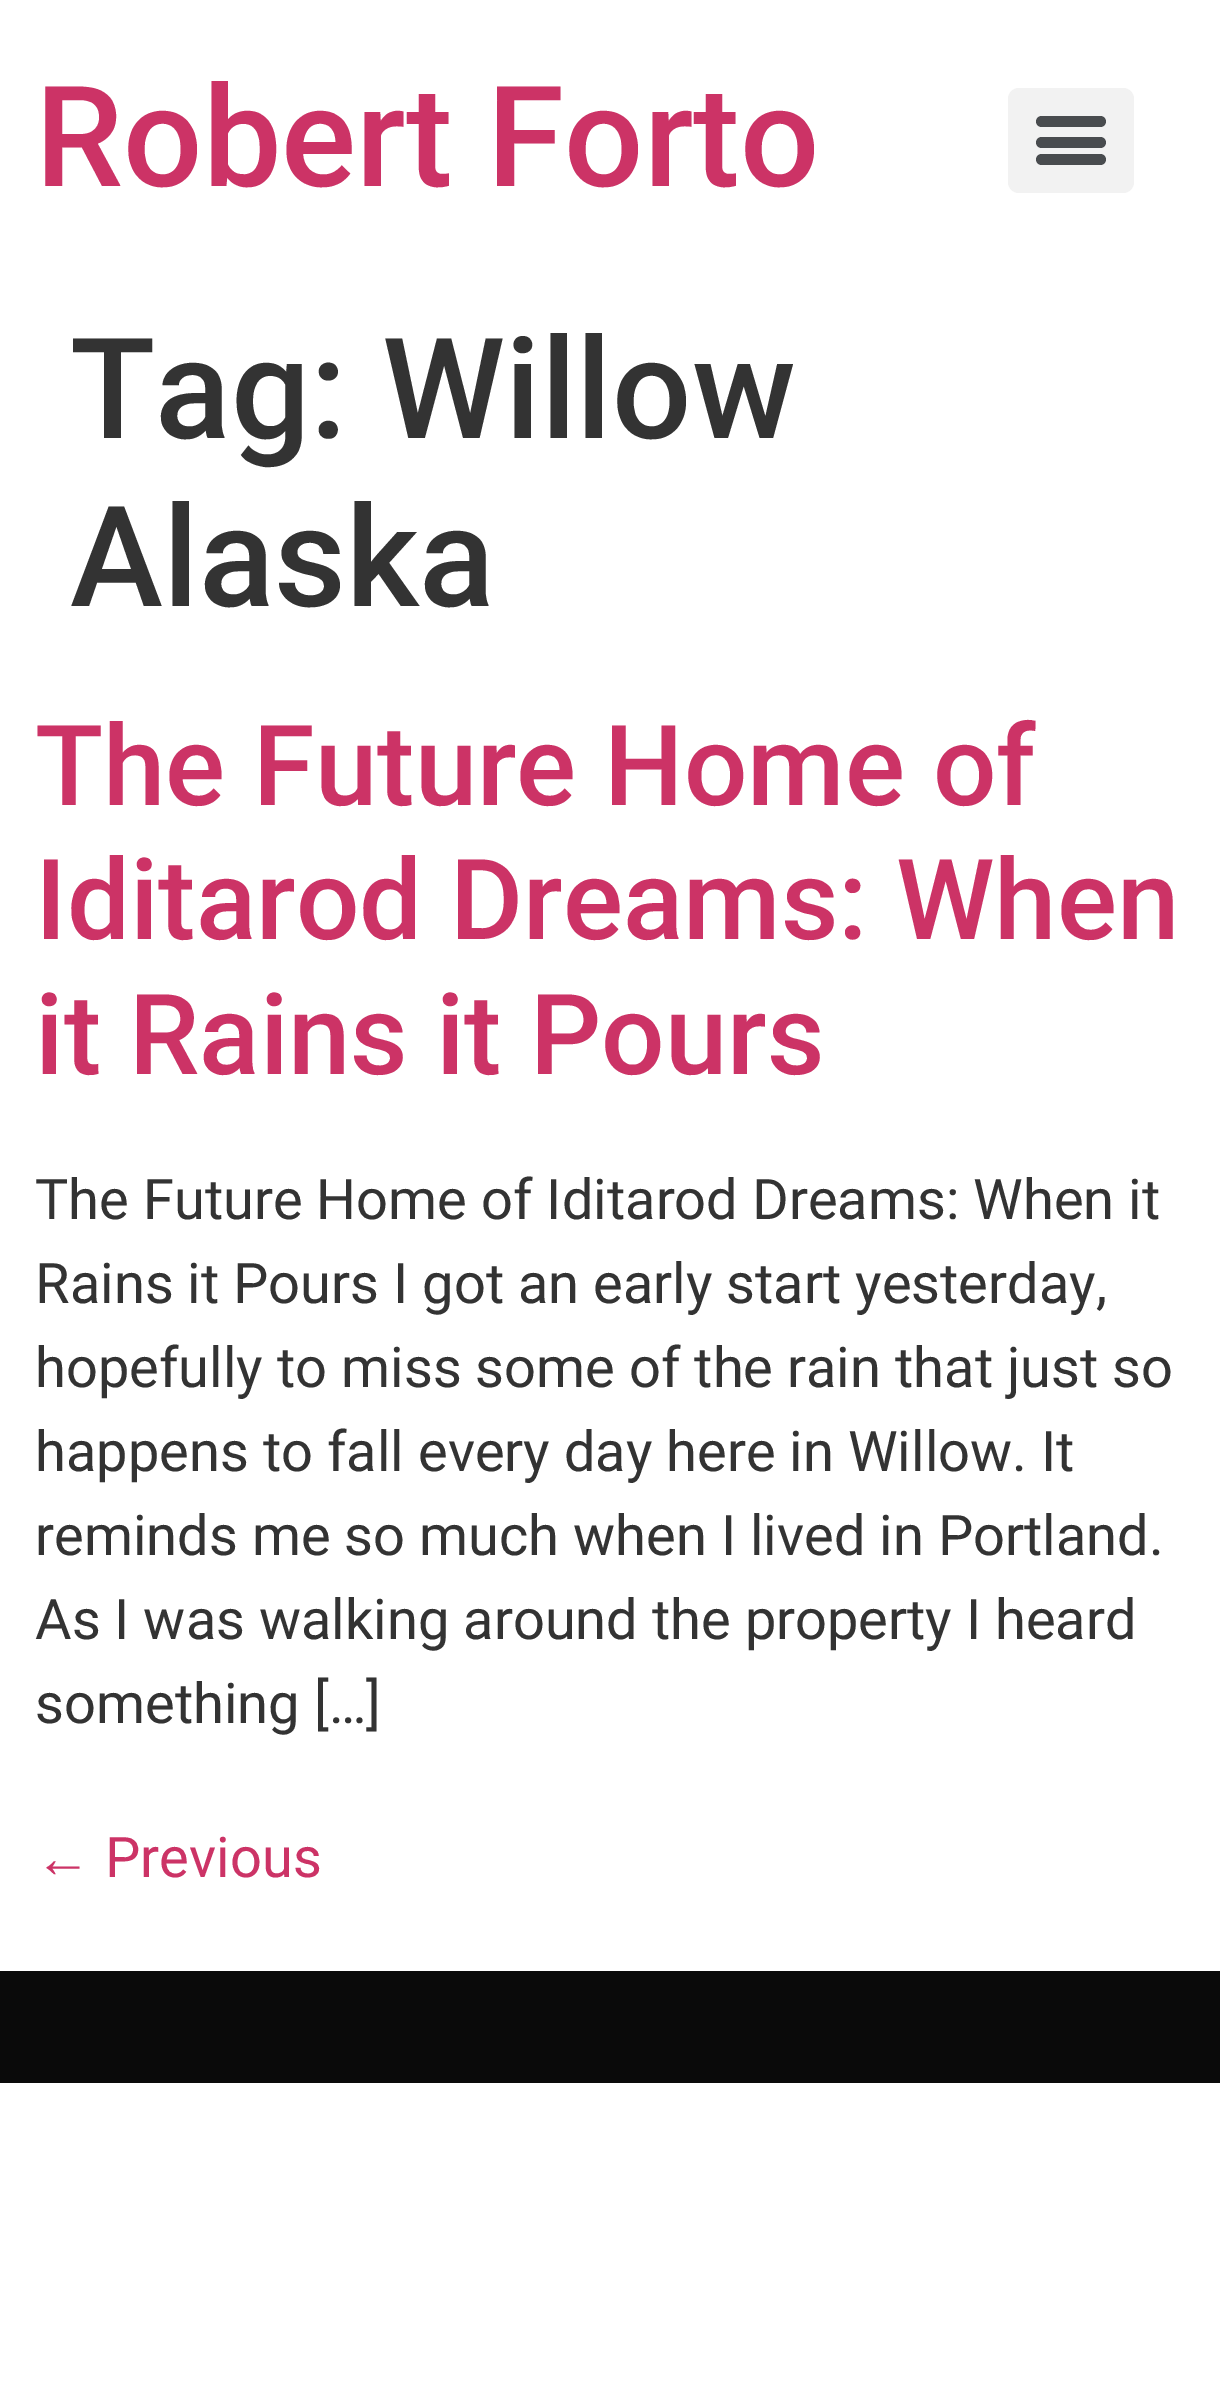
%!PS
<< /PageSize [1220 2394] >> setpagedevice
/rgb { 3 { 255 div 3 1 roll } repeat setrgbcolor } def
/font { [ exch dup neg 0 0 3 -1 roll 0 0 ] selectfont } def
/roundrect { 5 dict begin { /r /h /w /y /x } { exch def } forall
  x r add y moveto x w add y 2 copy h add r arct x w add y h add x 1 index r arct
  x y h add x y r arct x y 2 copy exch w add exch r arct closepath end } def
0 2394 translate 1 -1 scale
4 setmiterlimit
255 255 255 rgb
0 0 1220 2394 rectfill
242 242 242 rgb
1008 88 126 105 11 roundrect fill
73 76 79 rgb
1036 137 70 11 5.5 roundrect fill
1036 116 70 11 5.5 roundrect fill
1036 154 70 11 5.5 roundrect fill
10 10 10 rgb
0 1971 1220 112 rectfill
/Roboto-Medium 140 font
204 51 102 rgb
35 186 moveto (Robert Forto) show
51 51 51 rgb
70 438 moveto (Tag: Willow) show
70 606 moveto (Alaska) show
/Roboto-Medium 112 font
204 51 102 rgb
[
  [(The Future Home of) 35 805]
  [(Iditarod Dreams: When) 35 939]
  [(it Rains it Pours) 35 1074]
] { aload pop moveto show } forall
/Roboto-Regular 56 font
51 51 51 rgb
[
  [(The Future Home of Iditarod Dreams: When it) 35 1219]
  [(Rains it Pours I got an early start yesterday,) 35 1303]
  [(hopefully to miss some of the rain that just so) 35 1387]
  [(happens to fall every day here in Willow. It) 35 1471]
  [(reminds me so much when I lived in Portland.) 35 1555]
  [(As I was walking around the property I heard) 35 1639]
  [(something […]) 35 1723]
] { aload pop moveto show } forall
/LiberationSans-Regular 56 font
204 51 102 rgb
35 1877 moveto (←) show
/Roboto-Regular 56 font
105 1877 moveto (Previous) show
showpage
